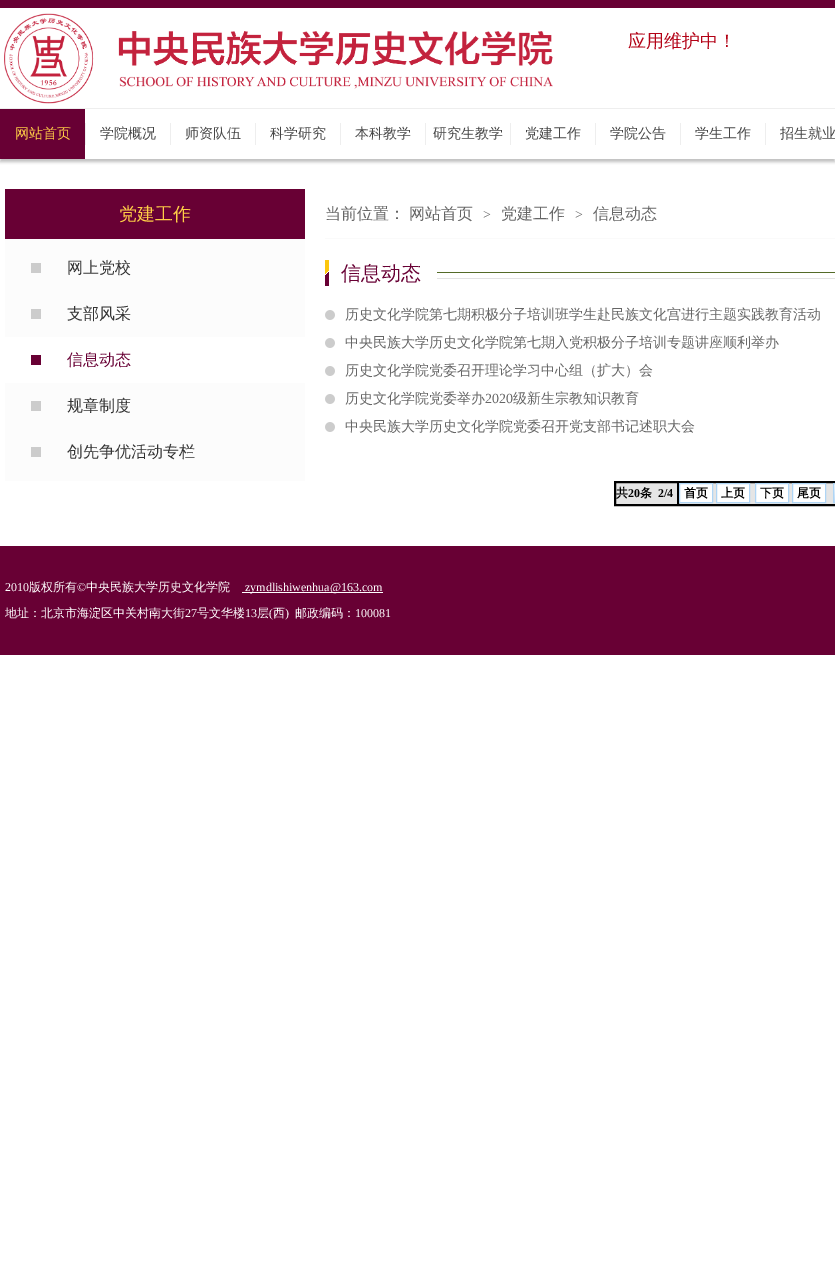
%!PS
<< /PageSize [835 1271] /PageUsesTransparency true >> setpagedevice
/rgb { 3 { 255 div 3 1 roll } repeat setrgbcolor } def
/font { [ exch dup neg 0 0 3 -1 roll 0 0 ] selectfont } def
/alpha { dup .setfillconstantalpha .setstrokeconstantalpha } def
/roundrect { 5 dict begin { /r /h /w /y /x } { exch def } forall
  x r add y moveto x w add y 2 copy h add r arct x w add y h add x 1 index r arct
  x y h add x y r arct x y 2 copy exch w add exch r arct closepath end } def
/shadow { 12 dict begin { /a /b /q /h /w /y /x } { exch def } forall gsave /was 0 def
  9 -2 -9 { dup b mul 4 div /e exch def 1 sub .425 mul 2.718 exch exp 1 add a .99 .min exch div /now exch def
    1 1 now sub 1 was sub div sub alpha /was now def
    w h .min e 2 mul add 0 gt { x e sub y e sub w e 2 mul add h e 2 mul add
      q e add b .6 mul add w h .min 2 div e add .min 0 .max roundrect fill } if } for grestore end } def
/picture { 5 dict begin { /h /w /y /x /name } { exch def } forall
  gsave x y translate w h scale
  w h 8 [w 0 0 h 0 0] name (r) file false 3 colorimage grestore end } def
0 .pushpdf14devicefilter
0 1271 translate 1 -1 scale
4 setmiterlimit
255 255 255 rgb
0 0 835 1271 rectfill
104 0 52 rgb
0 0 835 8 rectfill
(img/1.rgb) 4 13 549 91 picture
gsave
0 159 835 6 rectclip
192 192 192 rgb
0 111 835 51 0 1.5 1 shadow
grestore
[
  [0 108 835 1 238 238 238]
  [0 109 85 50 104 0 52]
  [85 123 1 22 238 238 238]
  [170 123 1 22 238 238 238]
  [255 123 1 22 238 238 238]
  [340 123 1 22 238 238 238]
  [425 123 1 22 238 238 238]
  [510 123 1 22 238 238 238]
  [595 123 1 22 238 238 238]
  [680 123 1 22 238 238 238]
  [765 123 1 22 238 238 238]
  [5 189 300 50 104 0 52]
  [5 239 300 242 252 252 252]
  [31 263 10 10 204 204 204]
  [31 309 10 10 204 204 204]
  [5 337 300 46 255 255 255]
  [31 355 10 10 104 0 52]
  [31 401 10 10 204 204 204]
  [31 447 10 10 204 204 204]
  [325 238 510 1 250 250 250]
] { aload pop rgb rectfill } forall
(img/2.rgb) 325 260 4 26 picture
84 107 40 rgb
437 272 398 1 rectfill
226 226 226 rgb
437 278 398 1 rectfill
(img/3.rgb) 325 310 10 10 picture
(img/3.rgb) 325 338 10 10 picture
(img/3.rgb) 325 366 10 10 picture
(img/3.rgb) 325 394 10 10 picture
(img/3.rgb) 325 422 10 10 picture
229 229 229 rgb
616 483 219 21 rectfill
0 0 0 rgb
614.5 481.5 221 24 rectstroke
615.5 482.5 62 22 rectstroke
678.5 482.5 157 22 rectstroke
255 255 255 rgb
679.5 483.5 moveto 712.5 483.5 lineto 712.5 502.5 lineto 679.5 502.5 lineto closepath gsave fill grestore
175 213 245 rgb
stroke
255 255 255 rgb
716.5 483.5 moveto 749.5 483.5 lineto 749.5 502.5 lineto 716.5 502.5 lineto closepath gsave fill grestore
175 213 245 rgb
stroke
255 255 255 rgb
755.5 483.5 moveto 788.5 483.5 lineto 788.5 502.5 lineto 755.5 502.5 lineto closepath gsave fill grestore
175 213 245 rgb
stroke
255 255 255 rgb
792.5 483.5 moveto 825.5 483.5 lineto 825.5 502.5 lineto 792.5 502.5 lineto closepath gsave fill grestore
175 213 245 rgb
stroke
gsave 834 484 moveto 835 484 lineto 835 502 lineto 834 502 lineto closepath clip newpath
<< /ShadingType 2 /ColorSpace /DeviceRGB /Coords [834 484 834 502] /Extend [true true] /Function << /FunctionType 2 /Domain [0 1] /C0 [1 1 1] /C1 [0.741 0.859 0.969] /N 1 >> >> shfill grestore
833.5 483.5 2 19 rectstroke
104 0 52 rgb
0 546 835 109 rectfill
255 255 255 rgb
242 592 141 1 rectfill
/WenQuanYiZenHei-Medium 18 font
179 2 22 rgb
628 47 moveto (应用维护中！) show
/WenQuanYiZenHei-Medium 14 font
255 207 70 rgb
15 138 moveto (网站首页) show
70 70 70 rgb
[
  [(学院概况) 100 138]
  [(师资队伍) 185 138]
  [(科学研究) 270 138]
  [(本科教学) 355 138]
  [(研究生教学) 433 138]
  [(党建工作) 525 138]
  [(学院公告) 610 138]
  [(学生工作) 695 138]
  [(招生就业) 780 138]
] { aload pop moveto show } forall
/WenQuanYiZenHei-Medium 18 font
255 207 70 rgb
119 220 moveto (党建工作) show
/WenQuanYiZenHei-Medium 16 font
51 51 51 rgb
67 273 moveto (网上党校) show
67 319 moveto (支部风采) show
104 0 52 rgb
67 365 moveto (信息动态) show
51 51 51 rgb
67 411 moveto (规章制度) show
67 457 moveto (创先争优活动专栏) show
102 102 102 rgb
325 219 moveto (当前位置：) show
409 219 moveto (网站首页) show
/LiberationSerif-Regular 14 font
483 219 moveto (>) show
/WenQuanYiZenHei-Medium 16 font
501 219 moveto (党建工作) show
/LiberationSerif-Regular 14 font
575 219 moveto (>) show
/WenQuanYiZenHei-Medium 16 font
593 219 moveto (信息动态) show
/WenQuanYiZenHei-Medium 20 font
104 0 52 rgb
341 280 moveto (信息动态) show
/WenQuanYiZenHei-Medium 14 font
102 102 102 rgb
[
  [(历史文化学院第七期积极分子培训班学生赴民族文化宫进行主题实践教育活动) 345 319]
  [(中央民族大学历史文化学院第七期入党积极分子培训专题讲座顺利举办) 345 347]
  [(历史文化学院党委召开理论学习中心组（扩大）会) 345 375]
  [(历史文化学院党委举办) 345 403]
] { aload pop moveto show } forall
/LiberationSerif-Regular 14 font
485 403 moveto (2020) show
/WenQuanYiZenHei-Medium 14 font
513 403 moveto (级新生宗教知识教育) show
345 431 moveto (中央民族大学历史文化学院党委召开党支部书记述职大会) show
/WenQuanYiZenHei-Bold 12 font
0 0 0 rgb
616 497 moveto (共) show
/LiberationSerif-Bold 12 font
628 497 moveto (20) show
/WenQuanYiZenHei-Bold 12 font
640 497 moveto (条) show
/LiberationSerif-Bold 12 font
658 497 moveto (2/4) show
/WenQuanYiZenHei-Bold 12 font
[
  [(首页) 684 497]
  [(上页) 721 497]
  [(下页) 760 497]
  [(尾页) 797 497]
] { aload pop moveto show } forall
/LiberationSerif-Regular 12 font
255 255 255 rgb
5 591 moveto (2010) show
/WenQuanYiZenHei-Medium 12 font
29 591 moveto (版权所有) show
/LiberationSerif-Regular 12 font
77 591 moveto (©) show
/WenQuanYiZenHei-Medium 12 font
86 591 moveto (中央民族大学历史文化学院) show
/LiberationSerif-Regular 12 font
245 591 moveto (zymdlishiwenhua@163.com) show
/WenQuanYiZenHei-Medium 12 font
5 617 moveto (地址：北京市海淀区中关村南大街) show
/LiberationSerif-Regular 12 font
185 617 moveto (27) show
/WenQuanYiZenHei-Medium 12 font
197 617 moveto (号文华楼) show
/LiberationSerif-Regular 12 font
245 617 moveto (13) show
/WenQuanYiZenHei-Medium 12 font
257 617 moveto (层) show
/LiberationSerif-Regular 12 font
269 617 moveto (\() show
/WenQuanYiZenHei-Medium 12 font
273 617 moveto (西) show
/LiberationSerif-Regular 12 font
285 617 moveto (\)) show
/WenQuanYiZenHei-Medium 12 font
295 617 moveto (邮政编码：) show
/LiberationSerif-Regular 12 font
355 617 moveto (100081) show
.poppdf14devicefilter showpage
